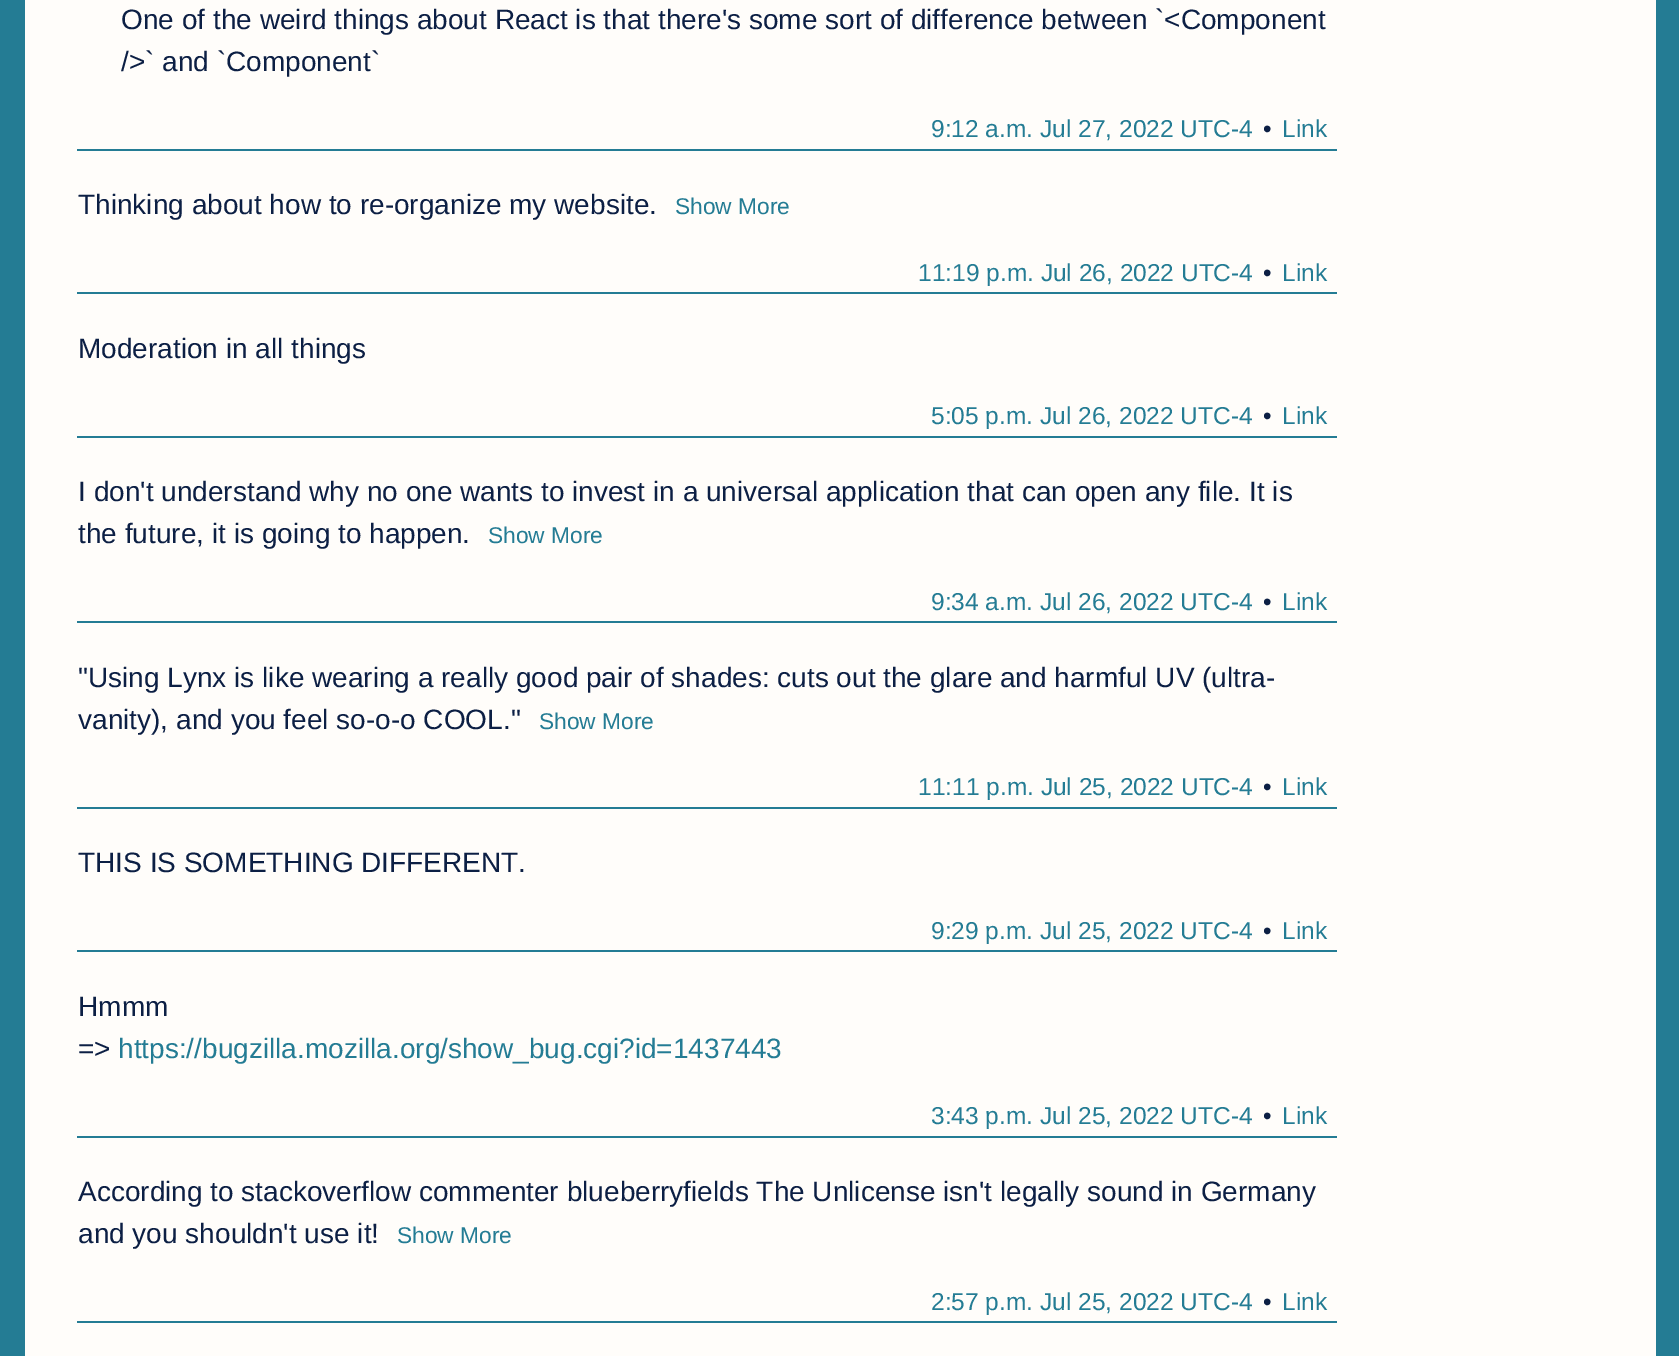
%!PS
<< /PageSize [1679 1356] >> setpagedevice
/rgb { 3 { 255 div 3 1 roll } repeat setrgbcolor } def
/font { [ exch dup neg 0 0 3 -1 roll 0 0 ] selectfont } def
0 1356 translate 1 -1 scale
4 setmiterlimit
36 124 148 rgb
0 0 1679 1356 rectfill
[
  [25 0 1631 1356 255 253 250]
  [77 149 1260 2 36 124 148]
  [77 292 1260 2 36 124 148]
  [77 436 1260 2 36 124 148]
  [77 621 1260 2 36 124 148]
  [77 807 1260 2 36 124 148]
  [77 950 1260 2 36 124 148]
  [77 1136 1260 2 36 124 148]
  [77 1321 1260 2 36 124 148]
] { aload pop rgb rectfill } forall
/LiberationSans-Regular 28 font
12 31 68 rgb
121 29 moveto (One of the weird things about React is that there's some sort of difference between `<Component) show
121 71 moveto (/>` and `Component`) show
/LiberationSans-Regular 24.5 font
36 124 148 rgb
931 137 moveto (9:12 a.m. Jul 27, 2022 UTC-4) show
12 31 68 rgb
1263 137 moveto (•) show
36 124 148 rgb
1282 137 moveto (Link) show
/LiberationSans-Regular 28 font
12 31 68 rgb
78 214 moveto (Thinking about how to re-organize my website.) show
/LiberationSans-Regular 22.75 font
36 124 148 rgb
675 214 moveto (Show More) show
/LiberationSans-Regular 24.5 font
918 281 moveto (11:19 p.m. Jul 26, 2022 UTC-4) show
12 31 68 rgb
1263 281 moveto (•) show
36 124 148 rgb
1282 281 moveto (Link) show
/LiberationSans-Regular 28 font
12 31 68 rgb
78 358 moveto (Moderation in all things) show
/LiberationSans-Regular 24.5 font
36 124 148 rgb
931 424 moveto (5:05 p.m. Jul 26, 2022 UTC-4) show
12 31 68 rgb
1263 424 moveto (•) show
36 124 148 rgb
1282 424 moveto (Link) show
/LiberationSans-Regular 28 font
12 31 68 rgb
78 501 moveto (I don't understand why no one wants to invest in a universal application that can open any file. It is) show
78 543 moveto (the future, it is going to happen.) show
/LiberationSans-Regular 22.75 font
36 124 148 rgb
488 543 moveto (Show More) show
/LiberationSans-Regular 24.5 font
931 610 moveto (9:34 a.m. Jul 26, 2022 UTC-4) show
12 31 68 rgb
1263 610 moveto (•) show
36 124 148 rgb
1282 610 moveto (Link) show
/LiberationSans-Regular 28 font
12 31 68 rgb
78 687 moveto ("Using Lynx is like wearing a really good pair of shades: cuts out the glare and harmful UV \(ultra-) show
78 729 moveto (vanity\), and you feel so-o-o COOL.") show
/LiberationSans-Regular 22.75 font
36 124 148 rgb
539 729 moveto (Show More) show
/LiberationSans-Regular 24.5 font
918 795 moveto (11:11 p.m. Jul 25, 2022 UTC-4) show
12 31 68 rgb
1263 795 moveto (•) show
36 124 148 rgb
1282 795 moveto (Link) show
/LiberationSans-Regular 28 font
12 31 68 rgb
78 872 moveto (THIS IS SOMETHING DIFFERENT.) show
/LiberationSans-Regular 24.5 font
36 124 148 rgb
931 939 moveto (9:29 p.m. Jul 25, 2022 UTC-4) show
12 31 68 rgb
1263 939 moveto (•) show
36 124 148 rgb
1282 939 moveto (Link) show
/LiberationSans-Regular 28 font
12 31 68 rgb
78 1016 moveto (Hmmm) show
78 1058 moveto (=>) show
36 124 148 rgb
118 1058 moveto (https://bugzilla.mozilla.org/show_bug.cgi?id=1437443) show
/LiberationSans-Regular 24.5 font
931 1124 moveto (3:43 p.m. Jul 25, 2022 UTC-4) show
12 31 68 rgb
1263 1124 moveto (•) show
36 124 148 rgb
1282 1124 moveto (Link) show
/LiberationSans-Regular 28 font
12 31 68 rgb
78 1201 moveto (According to stackoverflow commenter blueberryfields The Unlicense isn't legally sound in Germany) show
78 1243 moveto (and you shouldn't use it!) show
/LiberationSans-Regular 22.75 font
36 124 148 rgb
397 1243 moveto (Show More) show
/LiberationSans-Regular 24.5 font
931 1310 moveto (2:57 p.m. Jul 25, 2022 UTC-4) show
12 31 68 rgb
1263 1310 moveto (•) show
36 124 148 rgb
1282 1310 moveto (Link) show
showpage
